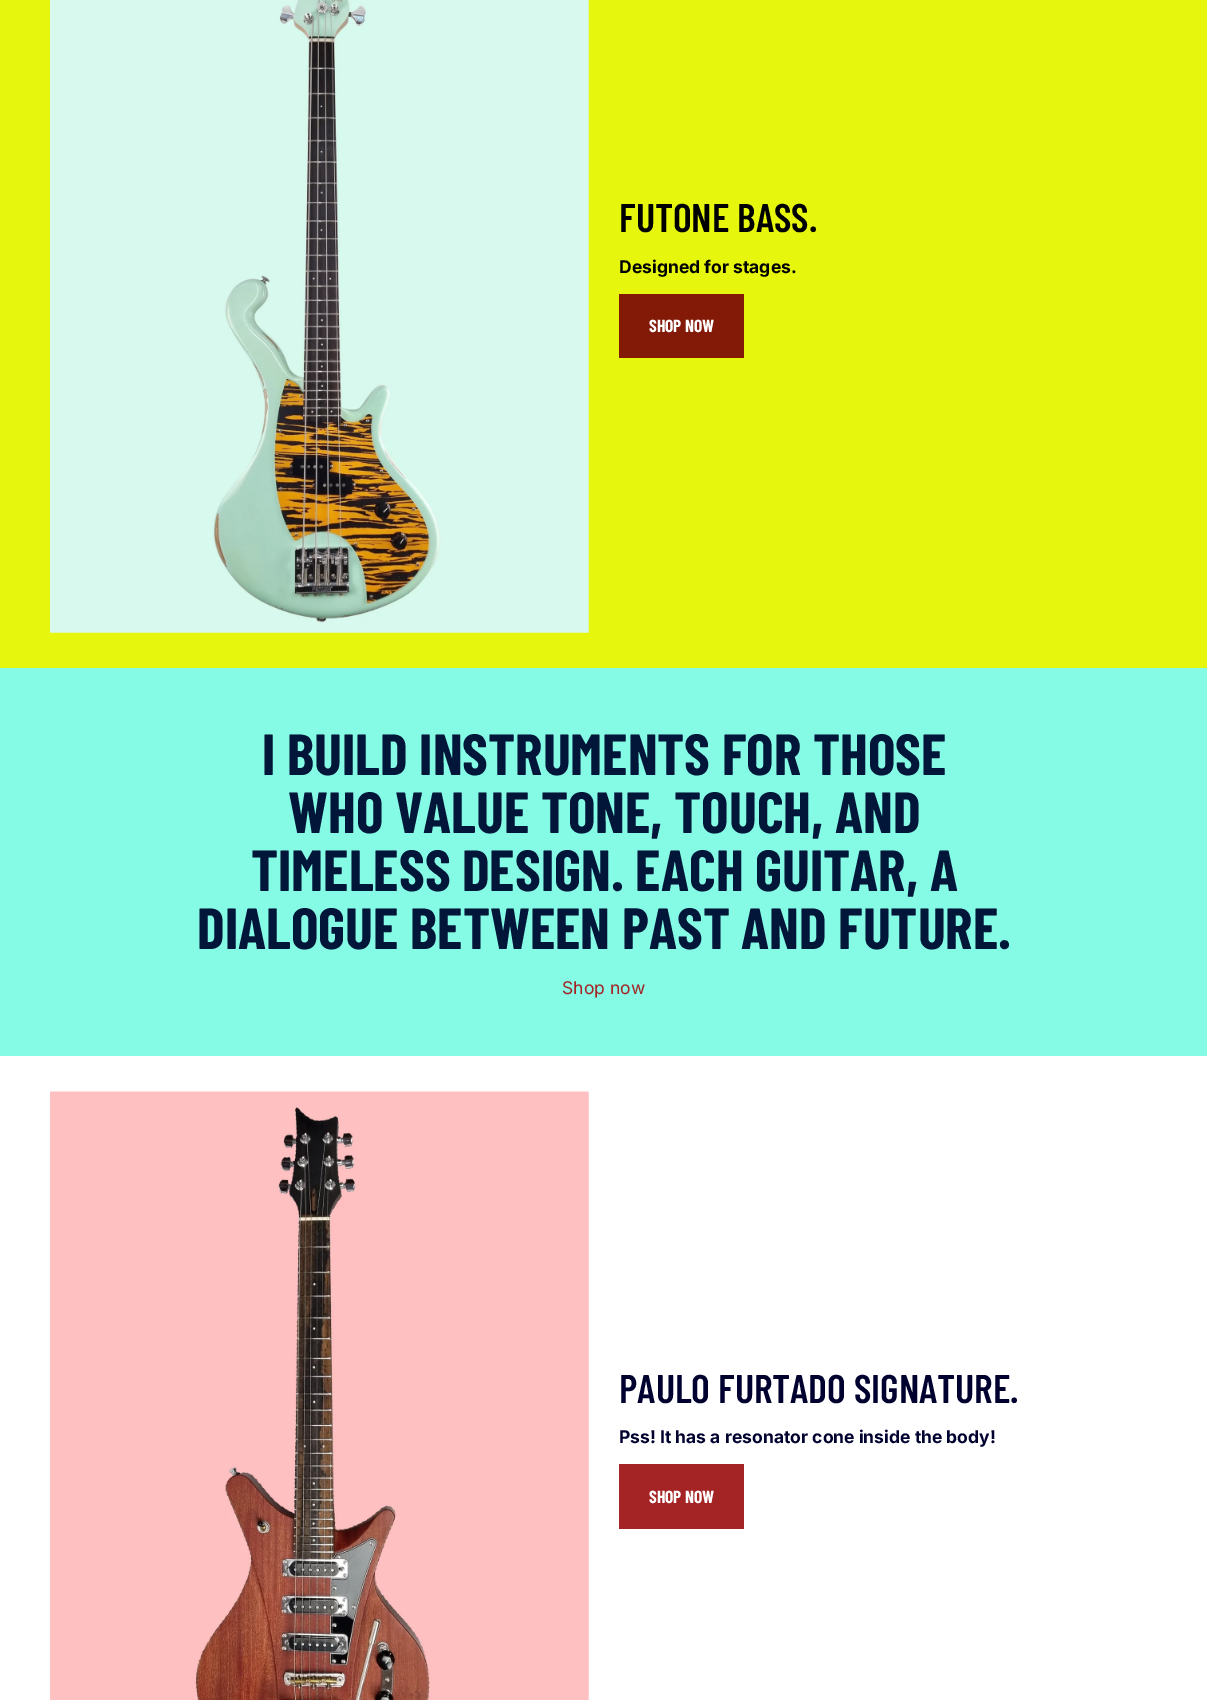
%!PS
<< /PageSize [1207 1700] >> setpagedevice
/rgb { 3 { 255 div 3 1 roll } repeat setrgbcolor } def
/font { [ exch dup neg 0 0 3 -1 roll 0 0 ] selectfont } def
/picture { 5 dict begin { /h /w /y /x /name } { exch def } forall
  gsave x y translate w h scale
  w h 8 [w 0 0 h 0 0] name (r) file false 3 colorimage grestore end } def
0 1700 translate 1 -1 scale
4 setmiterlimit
255 255 255 rgb
0 0 1207 1700 rectfill
230 247 13 rgb
0 0 1207 668 rectfill
(img/1.rgb) 50 0 539 633 picture
130 26 7 rgb
619 294 125 64 rectfill
133 250 229 rgb
0 668 1207 388 rectfill
(img/2.rgb) 50 1091 539 609 picture
164 35 37 rgb
619 1464 125 65 rectfill
/BarlowCondensed-SemiBold 40 font
0 0 0 rgb
619 232 moveto (FUTONE BASS.) show
/Inter-Bold 17.5 font
619 273 moveto (Designed for stages.) show
/BarlowCondensed-Bold 17.5 font
255 255 255 rgb
649 332 moveto (SHOP NOW) show
/BarlowCondensed-Bold 58 font
1 22 57 rgb
[
  [(I BUILD INSTRUMENTS FOR THOSE) 262 775]
  [(WHO VALUE TONE, TOUCH, AND) 288 833]
  [(TIMELESS DESIGN. EACH GUITAR, A) 251 891]
  [(DIALOGUE BETWEEN PAST AND FUTURE.) 197 949]
] { aload pop moveto show } forall
/Inter-Regular 17.5 font
164 35 37 rgb
562 994 moveto (Shop now) show
/BarlowCondensed-SemiBold 40 font
1 1 48 rgb
619 1403 moveto (PAULO FURTADO SIGNATURE.) show
/Inter-Bold 17.5 font
619 1443 moveto (Pss! It has a resonator cone inside the body!) show
/BarlowCondensed-Bold 17.5 font
255 255 255 rgb
649 1503 moveto (SHOP NOW) show
showpage
